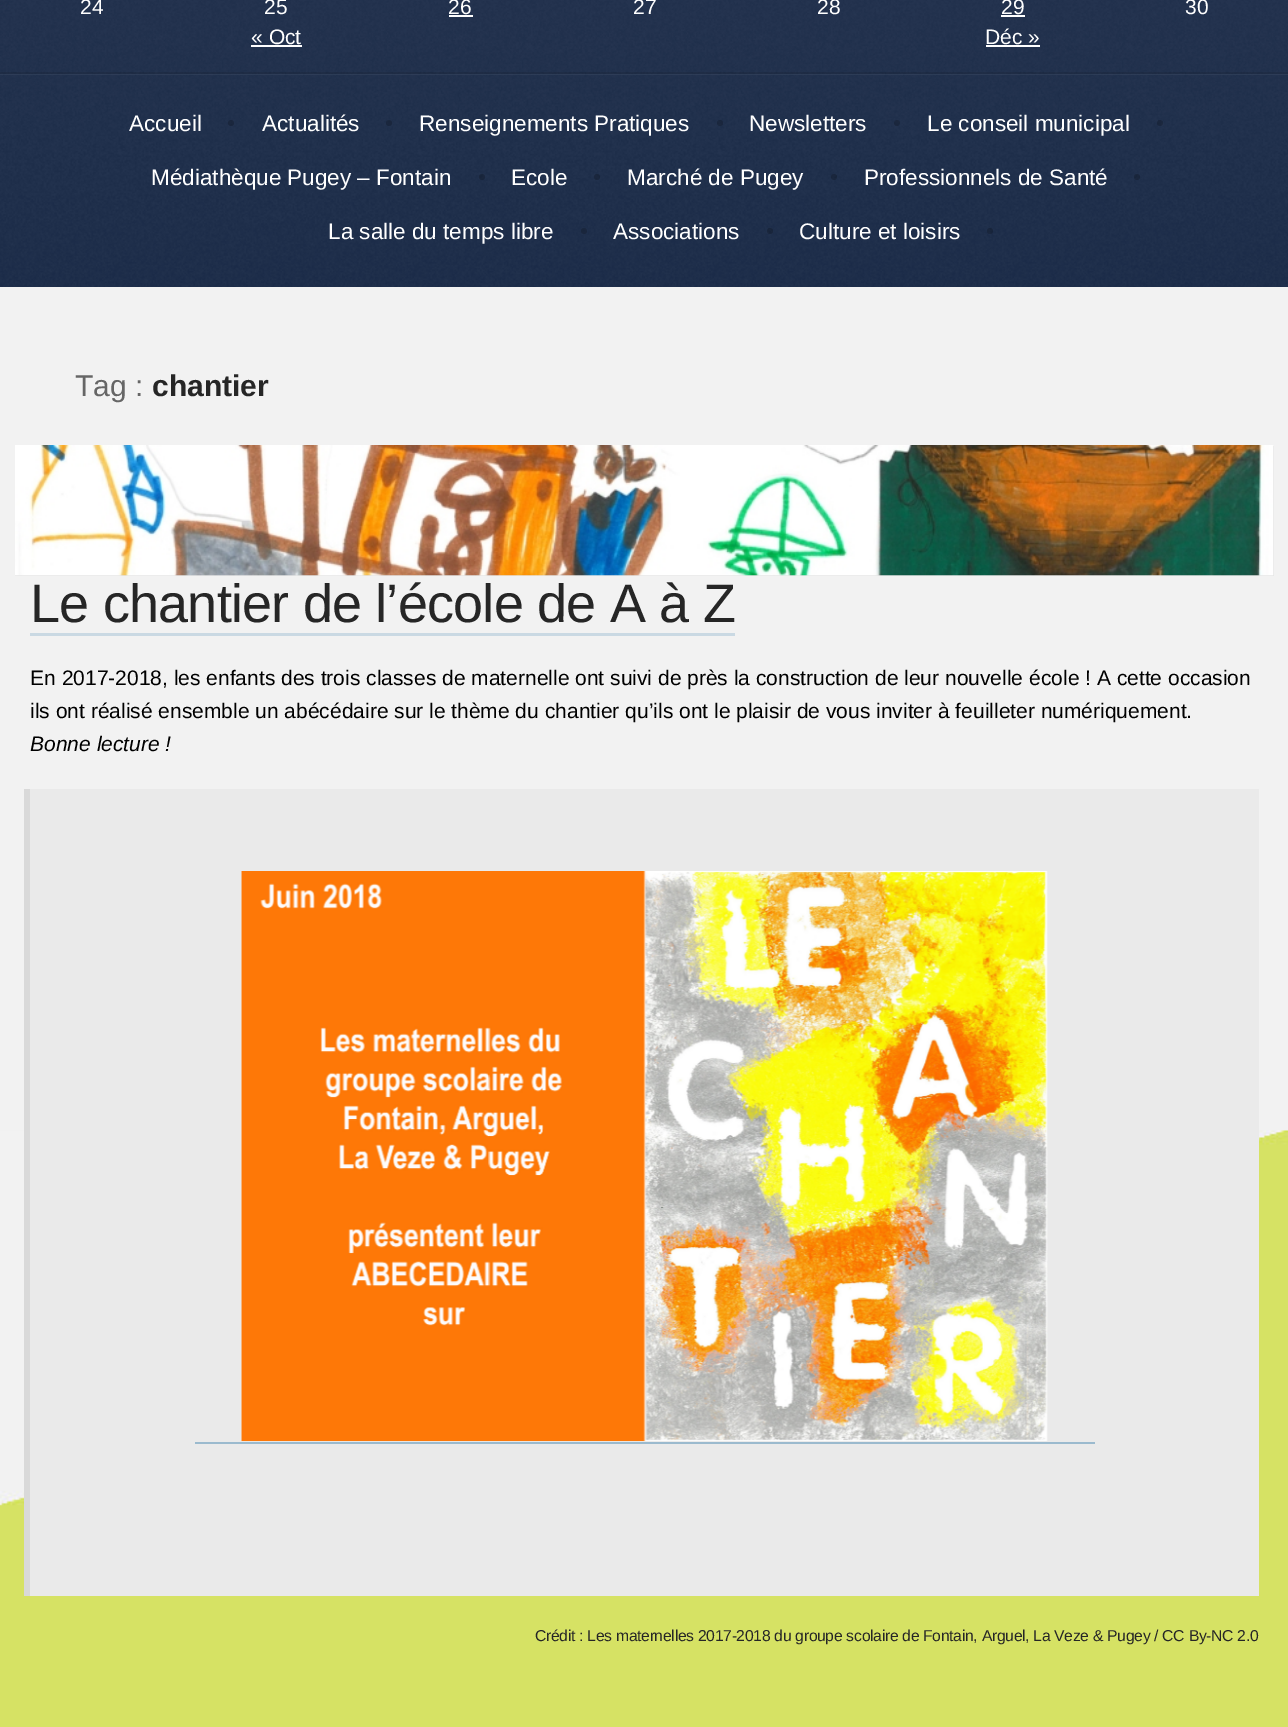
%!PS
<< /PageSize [1288 1727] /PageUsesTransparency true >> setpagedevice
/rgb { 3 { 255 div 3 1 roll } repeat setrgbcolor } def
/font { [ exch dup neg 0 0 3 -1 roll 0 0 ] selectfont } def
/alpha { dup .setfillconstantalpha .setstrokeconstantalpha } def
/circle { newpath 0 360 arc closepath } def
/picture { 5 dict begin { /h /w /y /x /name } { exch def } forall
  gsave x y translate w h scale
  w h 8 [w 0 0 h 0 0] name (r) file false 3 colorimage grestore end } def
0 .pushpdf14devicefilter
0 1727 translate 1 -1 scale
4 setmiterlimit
19 36 66 rgb
0 0 1288 1727 rectfill
(img/1.rgb) 0 0 1288 287 picture
0.05 alpha
255 255 255 rgb
0 74 moveto 0 75 lineto 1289 75 lineto 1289 -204 lineto 1288 -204 lineto 1288 74 lineto closepath fill
0.1 alpha
[
  [0 72 1288 2 0 0 0]
] { aload pop rgb rectfill } forall
1 alpha
[
  [449 15 24 2 255 255 255]
  [1001 15 24 2 255 255 255]
  [251 45 51 2 255 255 255]
  [986 45 54 2 255 255 255]
] { aload pop rgb rectfill } forall
0.2 alpha
0 0 0 rgb
231 123 3 circle fill
389 123 3 circle fill
720 123 3 circle fill
897 123 3 circle fill
1160 123 3 circle fill
482 177 3 circle fill
597 177 3 circle fill
834 177 3 circle fill
1137 177 3 circle fill
584 231 3 circle fill
770 231 3 circle fill
990 231 3 circle fill
1 alpha
242 242 242 rgb
0 287 1288 844 rectfill
(img/2.rgb) 0 1130 1288 597 picture
229 229 229 rgb
15 446 1259 130 rectfill
(img/3.rgb) 15 445 1259 131 picture
[
  [30 633 705 3 202 217 227]
  [30 789 1229 807 234 234 234]
  [24 789 6 807 217 217 217]
  [195 1442 900 2 155 186 206]
] { aload pop rgb rectfill } forall
(img/4.rgb) 241 871 807 571 picture
/LiberationSans-Regular 21 font
255 255 255 rgb
[
  [(24) 80 14]
  [(25) 264 14]
  [(26) 448 14]
  [(27) 633 14]
  [(28) 817 14]
  [(29) 1001 14]
  [(30) 1185 14]
  [(« Oct) 251 44]
  [(Déc ») 985 44]
] { aload pop moveto show } forall
/LiberationSans-Regular 22.5 font
[
  [(Accueil) 129 131]
  [(Actualités) 262 131]
  [(Renseignements Pratiques) 419 131]
  [(Newsletters) 749 131]
  [(Le conseil municipal) 927 131]
  [(Médiathèque Pugey – Fontain) 151 185]
  [(Ecole) 511 185]
  [(Marché de Pugey) 627 185]
  [(Professionnels de Santé) 864 185]
  [(La salle du temps libre) 328 239]
  [(Associations) 613 239]
  [(Culture et loisirs) 799 239]
] { aload pop moveto show } forall
/LiberationSans-Regular 30 font
102 102 102 rgb
75 396 moveto (Tag :) show
/LiberationSans-Bold 30 font
38 38 38 rgb
152 396 moveto (chantier) show
/LiberationSans-Regular 54 font
30 622 moveto -0.8 0 (Le chantier de l’école de A à Z) ashow
/LiberationSans-Regular 21 font
0 0 0 rgb
30 685 moveto (En 2017-2018, les enfants des trois classes de maternelle ont suivi de près la construction de leur nouvelle école ! A cette occasion) show
30 718 moveto (ils ont réalisé ensemble un abécédaire sur le thème du chantier qu’ils ont le plaisir de vous inviter à feuilleter numériquement.) show
/LiberationSans-Italic 21 font
30 751 moveto (Bonne lecture !) show
/LiberationSans-Regular 15.75 font
38 38 38 rgb
535 1641 moveto -0.32 0 (Crédit : Les maternelles 2017-2018 du groupe scolaire de Fontain, Arguel, La Veze & Pugey / CC By-NC 2.0) ashow
.poppdf14devicefilter showpage
